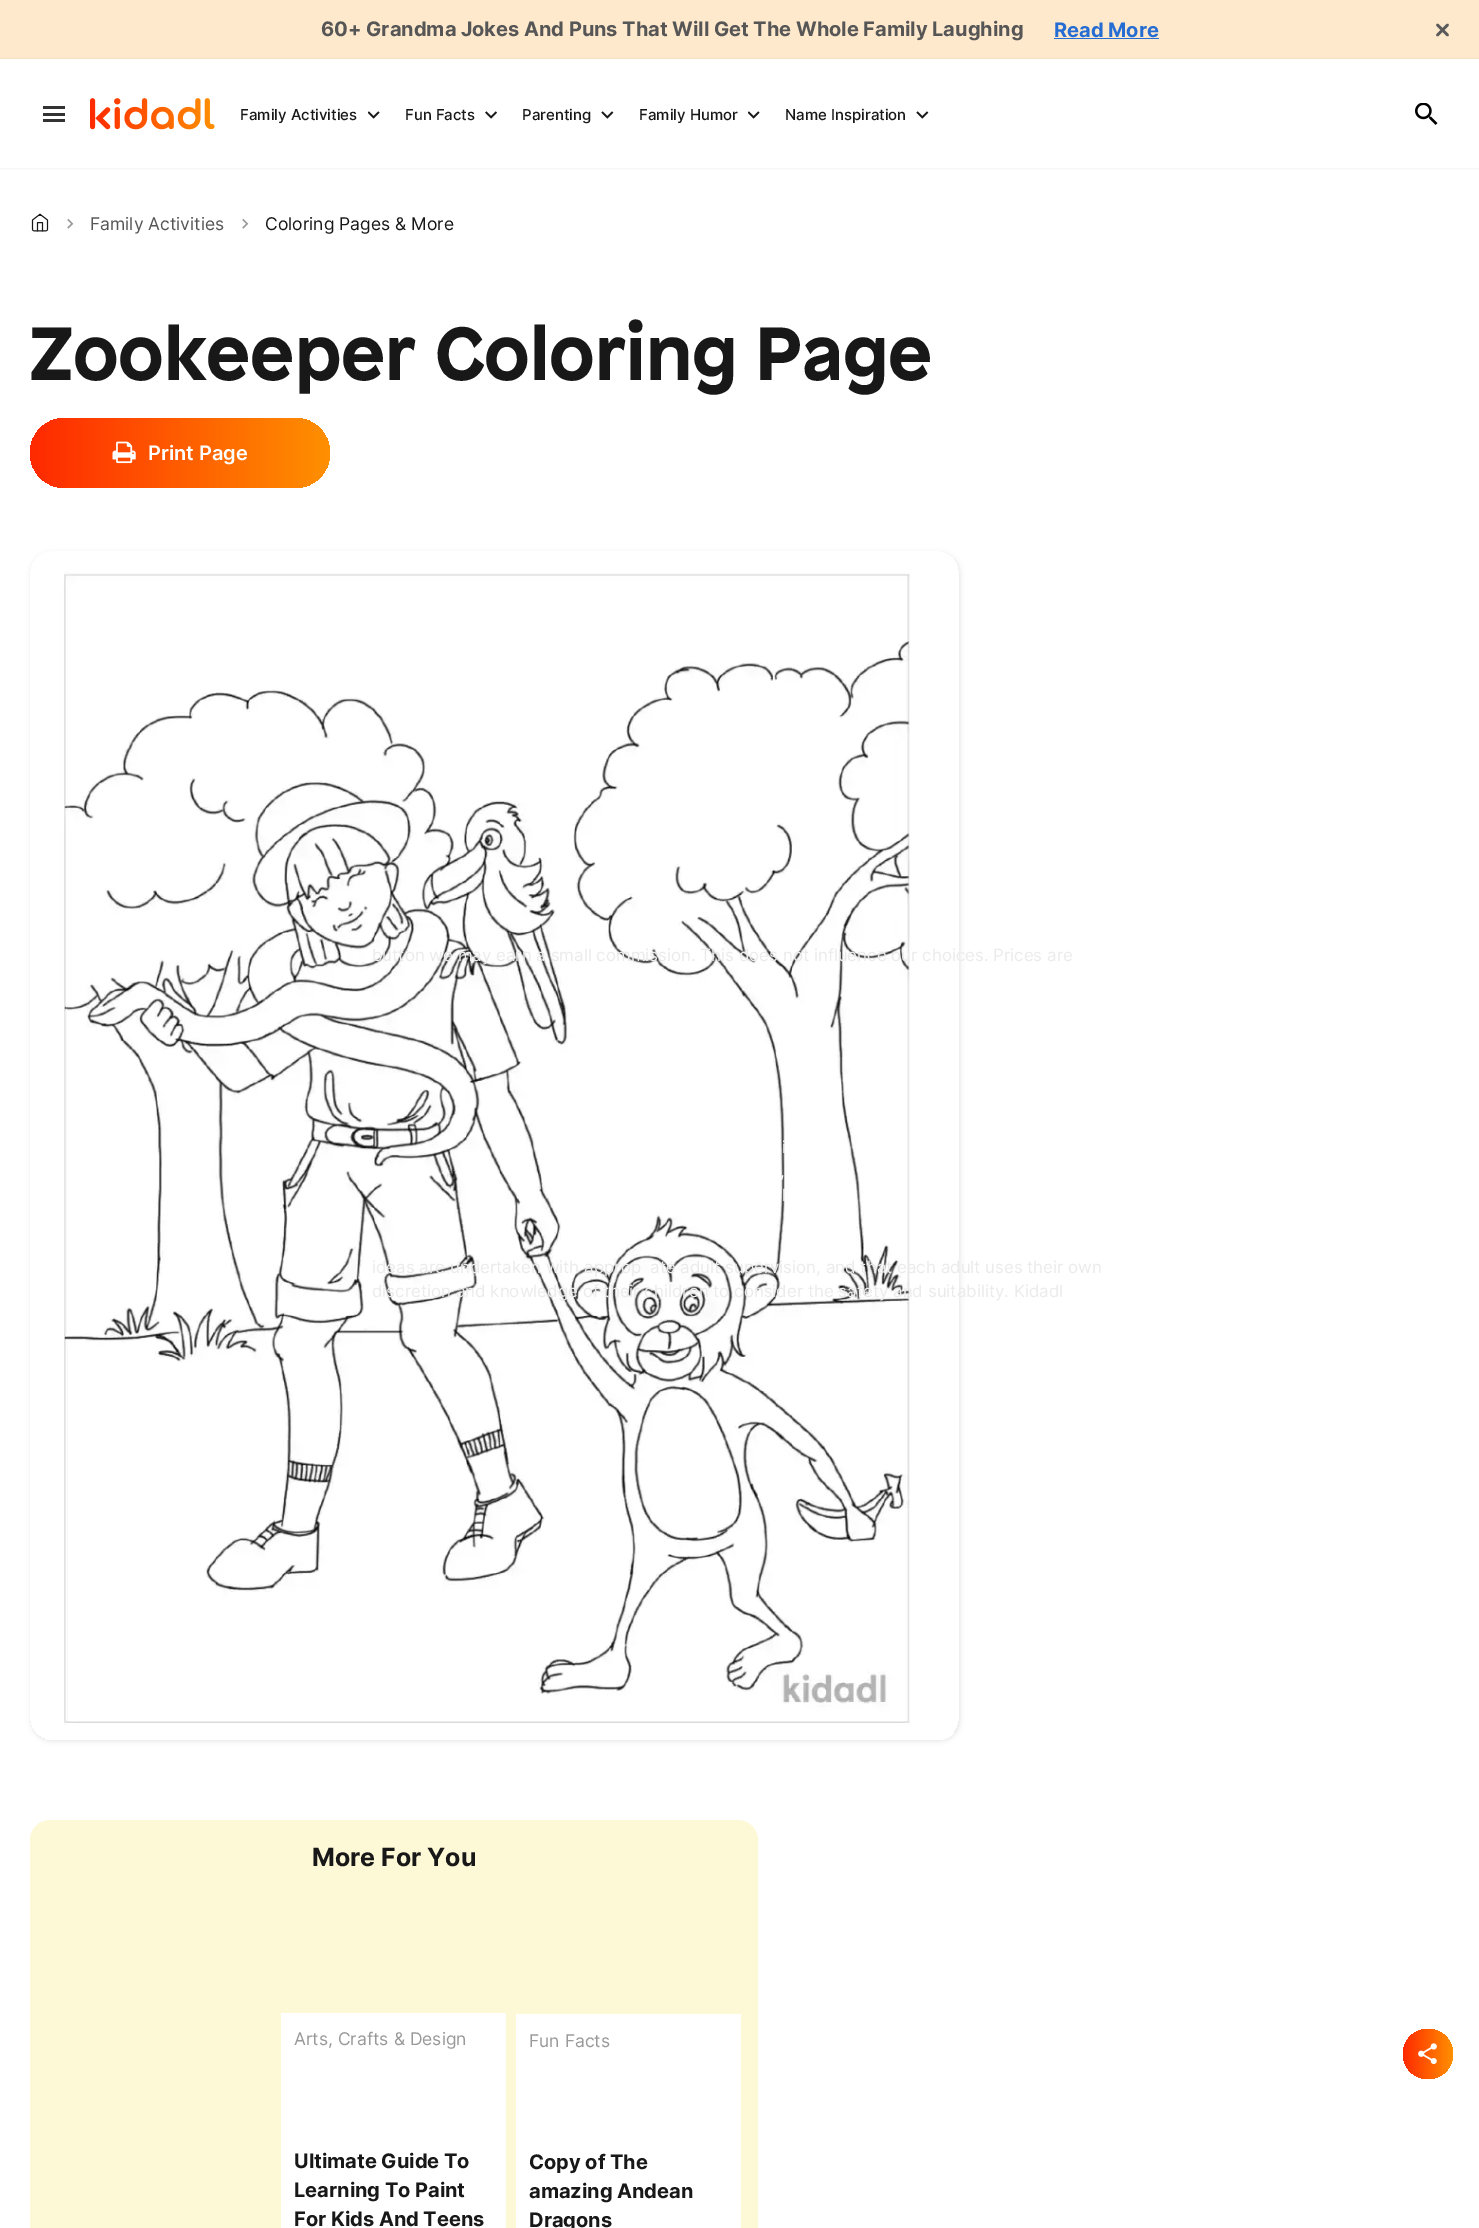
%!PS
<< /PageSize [1479 2228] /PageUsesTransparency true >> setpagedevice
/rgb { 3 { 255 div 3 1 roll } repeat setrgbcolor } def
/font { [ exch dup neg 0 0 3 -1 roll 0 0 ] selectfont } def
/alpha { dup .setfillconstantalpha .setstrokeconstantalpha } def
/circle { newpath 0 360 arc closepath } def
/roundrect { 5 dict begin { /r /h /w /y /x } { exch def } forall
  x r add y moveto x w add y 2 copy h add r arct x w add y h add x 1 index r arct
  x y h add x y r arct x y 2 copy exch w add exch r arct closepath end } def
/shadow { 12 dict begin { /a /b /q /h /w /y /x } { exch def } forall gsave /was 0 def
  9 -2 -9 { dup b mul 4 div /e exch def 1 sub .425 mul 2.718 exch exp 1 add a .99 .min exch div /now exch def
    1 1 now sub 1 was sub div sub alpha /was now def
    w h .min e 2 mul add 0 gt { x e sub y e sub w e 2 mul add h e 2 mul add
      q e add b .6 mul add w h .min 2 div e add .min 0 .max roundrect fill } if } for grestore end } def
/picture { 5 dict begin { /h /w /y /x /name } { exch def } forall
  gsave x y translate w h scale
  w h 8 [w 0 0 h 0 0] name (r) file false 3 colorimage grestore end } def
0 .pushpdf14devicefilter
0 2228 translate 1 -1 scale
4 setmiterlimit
255 255 255 rgb
0 0 1479 2228 rectfill
255 233 204 rgb
0 0 1479 59 rectfill
38 109 211 rgb
1054 38 105 1 rectfill
90 90 90 rgb
2.5 setlinewidth
1 setlinecap
1 setlinejoin
1447.5 25 moveto 1437.5 35 lineto 1437.5 25 moveto 1447.5 35 lineto stroke
0 0 0 rgb
0 59 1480 109 0 1 0.1 shadow
[
  [0 59 1479 109 255 255 255]
  [43 106 22 3 51 51 51]
  [43 113 22 3 51 51 51]
  [43 119 22 3 51 51 51]
] { aload pop rgb rectfill } forall
(img/1.rgb) 90 98 125 32 picture
(img/2.rgb) 368 111 12 8 picture
(img/3.rgb) 485 111 12 8 picture
(img/4.rgb) 601 111 13 8 picture
(img/2.rgb) 748 111 12 8 picture
(img/4.rgb) 916 111 13 8 picture
(img/5.rgb) 1415 103 23 22 picture
(img/6.rgb) 31 213 18 19 picture
(img/7.rgb) 67 218 7 11 picture
(img/7.rgb) 242 218 7 11 picture
gsave 30 418 300 70 35 roundrect clip newpath
<< /ShadingType 2 /ColorSpace /DeviceRGB /Coords [30 453 330 453] /Extend [true true] /Function << /FunctionType 2 /Domain [0 1] /C0 [0.996 0.161 0] /C1 [1 0.565 0] /N 1 >> >> shfill grestore
(img/8.rgb) 112 441 24 23 picture
gsave
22 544 moveto 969 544 lineto 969 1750 lineto 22 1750 lineto closepath 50 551 moveto 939 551 lineto 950 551 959 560 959 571 curveto 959 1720 lineto 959 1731 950 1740 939 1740 curveto 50 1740 lineto 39 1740 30 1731 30 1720 curveto 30 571 lineto 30 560 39 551 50 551 curveto closepath eoclip newpath
0 0 0 rgb
31 553 929 1188 20 2.5 0.1 shadow
grestore
(img/9.rgb) 45 572 909 1168 picture
gsave 1428 2054 25 circle clip newpath
<< /ShadingType 2 /ColorSpace /DeviceRGB /Coords [1403 2054 1453 2054] /Extend [true true] /Function << /FunctionType 2 /Domain [0 1] /C0 [0.996 0.161 0] /C1 [1 0.565 0] /N 1 >> >> shfill grestore
(img/10.rgb) 1418 2043 19 22 picture
253 248 213 rgb
30 1820 728 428 20 roundrect fill
255 255 255 rgb
281 2013 225 215 rectfill
516 2014 225 214 rectfill
/Inter-Bold 20 font
86 86 86 rgb
321 36 moveto (60+ Grandma Jokes And Puns That Will Get The Whole Family Laughing) show
38 109 211 rgb
1054 37 moveto (Read More) show
/Inter-Medium 15 font
24 24 24 rgb
[
  [(Family Activities) 240 120]
  [(Fun Facts) 405 120]
  [(Parenting) 522 120]
  [(Family Humor) 639 120]
  [(Name Inspiration) 785 120]
] { aload pop moveto show } forall
/Inter-Regular 17.5 font
86 86 86 rgb
90 230 moveto (Family Activities) show
24 24 24 rgb
265 230 moveto (Coloring Pages & More) show
/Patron-Bold 75 font
30 380 moveto (Zookeeper Coloring Page) show
/Inter-SemiBold 20 font
255 255 255 rgb
148 460 moveto (Print Page) show
/Inter-Regular 16.9 font
235 235 235 rgb
372 961 moveto (button we may earn a small commission. This does not influence our choices. Prices are) show
247 247 247 rgb
782 1153 moveto (i) show
255 255 255 rgb
780 1177 moveto (,) show
782 1201 moveto (l) show
235 235 235 rgb
[
  [(ideas are undertaken with approp) 372 1273]
  [(ate adult supervision, and that each adult uses their own) 650 1273]
  [(discretion and knowledge of their children to consider the safety and suitability. Kidadl) 372 1297]
] { aload pop moveto show } forall
/Inter-Bold 25 font
24 24 24 rgb
312 1866 moveto (More For You) show
/Inter-Regular 17.5 font
153 153 153 rgb
294 2045 moveto (Arts, Crafts & Design) show
/Inter-Bold 20 font
24 24 24 rgb
[
  [(Ultimate Guide To) 294 2168]
  [(Learning To Paint) 294 2197]
  [(For Kids And Teens) 294 2226]
] { aload pop moveto show } forall
/Inter-Regular 17.5 font
153 153 153 rgb
529 2047 moveto (Fun Facts) show
/Inter-Bold 20 font
24 24 24 rgb
[
  [(Copy of The) 529 2169]
  [(amazing Andean) 529 2198]
  [(Dragons) 529 2227]
] { aload pop moveto show } forall
.poppdf14devicefilter showpage
